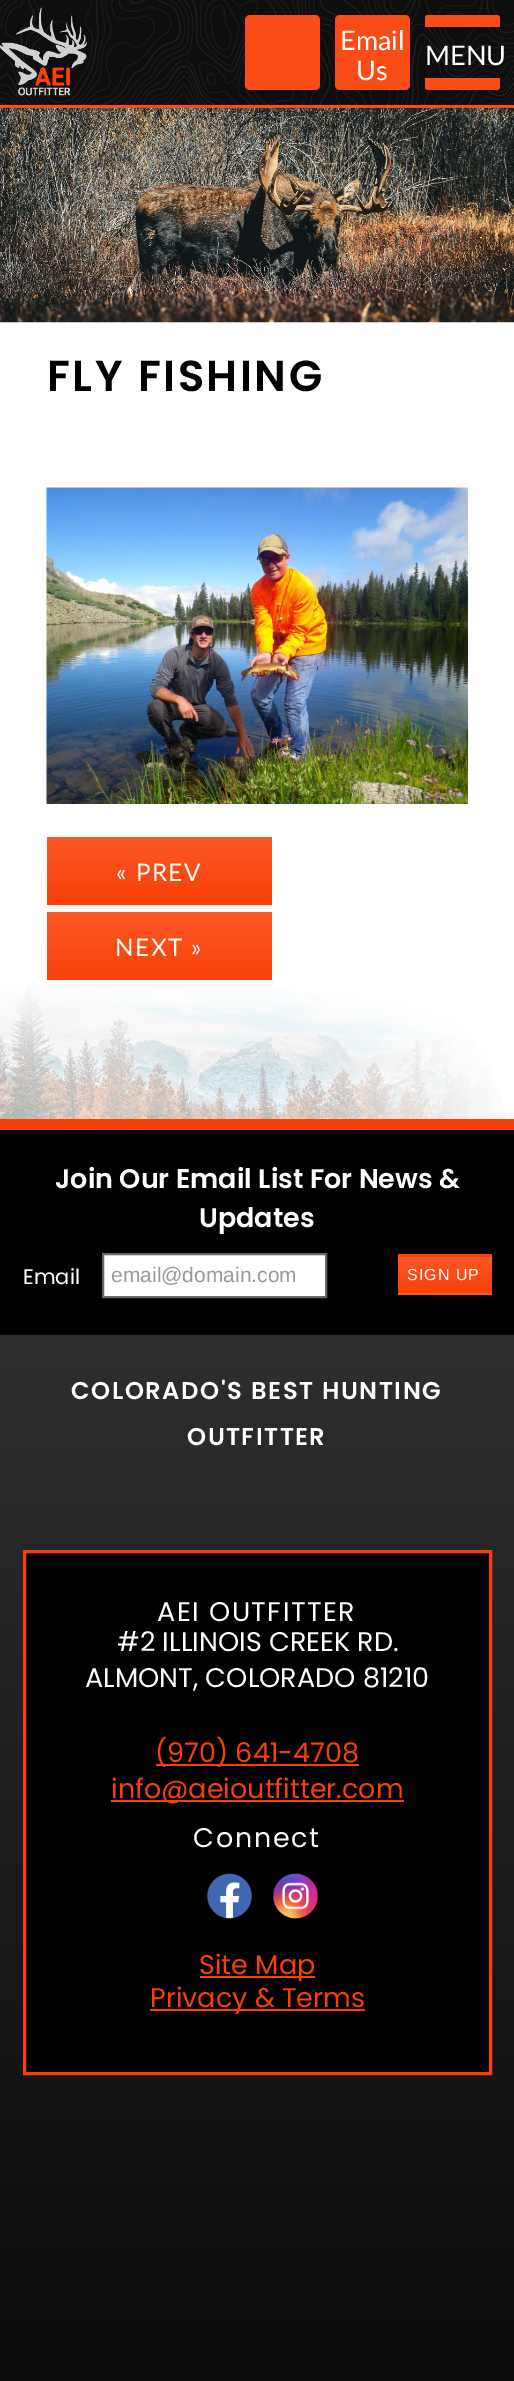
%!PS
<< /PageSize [514 2381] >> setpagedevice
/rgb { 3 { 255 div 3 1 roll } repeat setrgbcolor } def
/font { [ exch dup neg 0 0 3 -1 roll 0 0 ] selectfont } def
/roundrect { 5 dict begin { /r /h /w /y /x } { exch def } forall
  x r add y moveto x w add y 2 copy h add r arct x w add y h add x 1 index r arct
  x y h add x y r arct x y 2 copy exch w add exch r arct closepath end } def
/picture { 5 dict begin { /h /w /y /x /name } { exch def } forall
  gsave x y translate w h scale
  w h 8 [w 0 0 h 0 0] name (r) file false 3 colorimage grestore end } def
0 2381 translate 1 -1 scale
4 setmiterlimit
255 255 255 rgb
0 0 514 2381 rectfill
(img/1.rgb) 0 0 514 105 picture
250 76 23 rgb
0 105 514 3 rectfill
(img/2.rgb) 0 7 87 89 picture
245 15 75 75 5 roundrect fill
335 15 75 75 5 roundrect fill
428 15 moveto 497 15 lineto 498.5 15 500 16.5 500 18 curveto 500 27 lineto 425 27 lineto 425 18 lineto 425 16.5 426.5 15 428 15 curveto closepath fill
425 78 moveto 500 78 lineto 500 87 lineto 500 88.5 498.5 90 497 90 curveto 428 90 lineto 426.5 90 425 88.5 425 87 curveto closepath fill
(img/3.rgb) 0 986 507 133 picture
(img/4.rgb) 0 108 514 215 picture
(img/5.rgb) 46 487 422 317 picture
gsave 47 837 moveto 272 837 lineto 272 905 lineto 47 905 lineto closepath clip newpath
<< /ShadingType 2 /ColorSpace /DeviceRGB /Coords [159 838 159 905] /Extend [true true] /Function << /FunctionType 2 /Domain [0 1] /C0 [0.984 0.345 0.149] /C1 [0.976 0.251 0.027] /N 1 >> >> shfill grestore
gsave 47 912 moveto 272 912 lineto 272 980 lineto 47 980 lineto closepath clip newpath
<< /ShadingType 2 /ColorSpace /DeviceRGB /Coords [159 913 159 980] /Extend [true true] /Function << /FunctionType 2 /Domain [0 1] /C0 [0.984 0.345 0.149] /C1 [0.976 0.251 0.027] /N 1 >> >> shfill grestore
gsave 0 1335 moveto 514 1335 lineto 514 2381 lineto 0 2381 lineto closepath clip newpath
<< /ShadingType 2 /ColorSpace /DeviceRGB /Coords [257 1130 257 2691] /Extend [true true] /Function << /FunctionType 2 /Domain [0 1] /C0 [0.212 0.208 0.208] /C1 [0 0 0] /N 1 >> >> shfill grestore
249 63 6 rgb
0 1119 514 11 rectfill
0 0 0 rgb
0 1130 514 205 rectfill
255 255 255 rgb
103 1254 moveto 326 1254 lineto 326 1297 lineto 103 1297 lineto closepath gsave fill grestore
102 102 102 rgb
2 setlinewidth
stroke
gsave 398 1254 moveto 492 1254 lineto 492 1257 lineto 398 1257 lineto closepath clip newpath
<< /ShadingType 2 /ColorSpace /DeviceRGB /Coords [445 1222 445 1257] /Extend [true true] /Function << /FunctionType 2 /Domain [0 1] /C0 [0.984 0.345 0.149] /C1 [0.976 0.251 0.027] /N 1 >> >> shfill grestore
gsave 398 1257 moveto 492 1257 lineto 492 1293 lineto 398 1293 lineto closepath clip newpath
<< /ShadingType 2 /ColorSpace /DeviceRGB /Coords [445 1257 445 1293] /Extend [true true] /Function << /FunctionType 2 /Domain [0 1] /C0 [0.984 0.345 0.149] /C1 [0.976 0.251 0.027] /N 1 >> >> shfill grestore
gsave 398 1293 moveto 492 1293 lineto 492 1295 lineto 398 1295 lineto closepath clip newpath
<< /ShadingType 2 /ColorSpace /DeviceRGB /Coords [445 1293 445 1328] /Extend [true true] /Function << /FunctionType 2 /Domain [0 1] /C0 [0.984 0.345 0.149] /C1 [0.976 0.251 0.027] /N 1 >> >> shfill grestore
0 0 0 rgb
24.5 1551.5 moveto 490.5 1551.5 lineto 490.5 2073.5 lineto 24.5 2073.5 lineto closepath gsave fill grestore
249 63 6 rgb
3 setlinewidth
stroke
156 1764 203 2 rectfill
111 1800 293 2 rectfill
(img/6.rgb) 207 1873 45 46 picture
(img/7.rgb) 273 1873 45 46 picture
200 1976 115 2 rectfill
150 2009 215 2 rectfill
/Lato-Regular 27 font
255 255 255 rgb
[
  [(Email) 340 50]
  [(Us) 356 80]
  [(MENU) 425 65]
] { aload pop moveto show } forall
/Poppins-SemiBold 43.25 font
0 0 0 rgb
47 391 moveto 2.5 0 (FLY FISHING) ashow
/Lato-Regular 24.25 font
255 255 255 rgb
116 881 moveto 1.5 0 (« PREV) ashow
115 956 moveto 1.5 0 (NEXT ») ashow
/Poppins-SemiBold 27 font
55 1188 moveto (Join Our Email List For News &) show
199 1227 moveto (Updates) show
/Poppins-Regular 21 font
23 1284 moveto (Email) show
/LiberationSans-Regular 21 font
153 153 153 rgb
111 1282 moveto (email@domain.com) show
/LiberationSans-Regular 16 font
255 255 255 rgb
407 1280 moveto 1 0 (SIGN UP) ashow
/Poppins-SemiBold 24.25 font
71 1399 moveto 1.6 0 (COLORADO'S BEST HUNTING) ashow
187 1445 moveto 1.5 0 (OUTFITTER) ashow
/Poppins-Regular 27 font
157 1621 moveto 1.5 0 (AEI OUTFITTER) ashow
117 1651 moveto (#2 ILLINOIS CREEK RD.) show
85 1687 moveto (ALMONT, COLORADO 81210) show
249 63 6 rgb
155 1762 moveto (\(970\) 641-4708) show
111 1798 moveto (info@aeioutfitter.com) show
255 255 255 rgb
193 1847 moveto 1.75 0 (Connect) ashow
249 63 6 rgb
199 1974 moveto (Site Map) show
150 2007 moveto (Privacy & Terms) show
showpage
